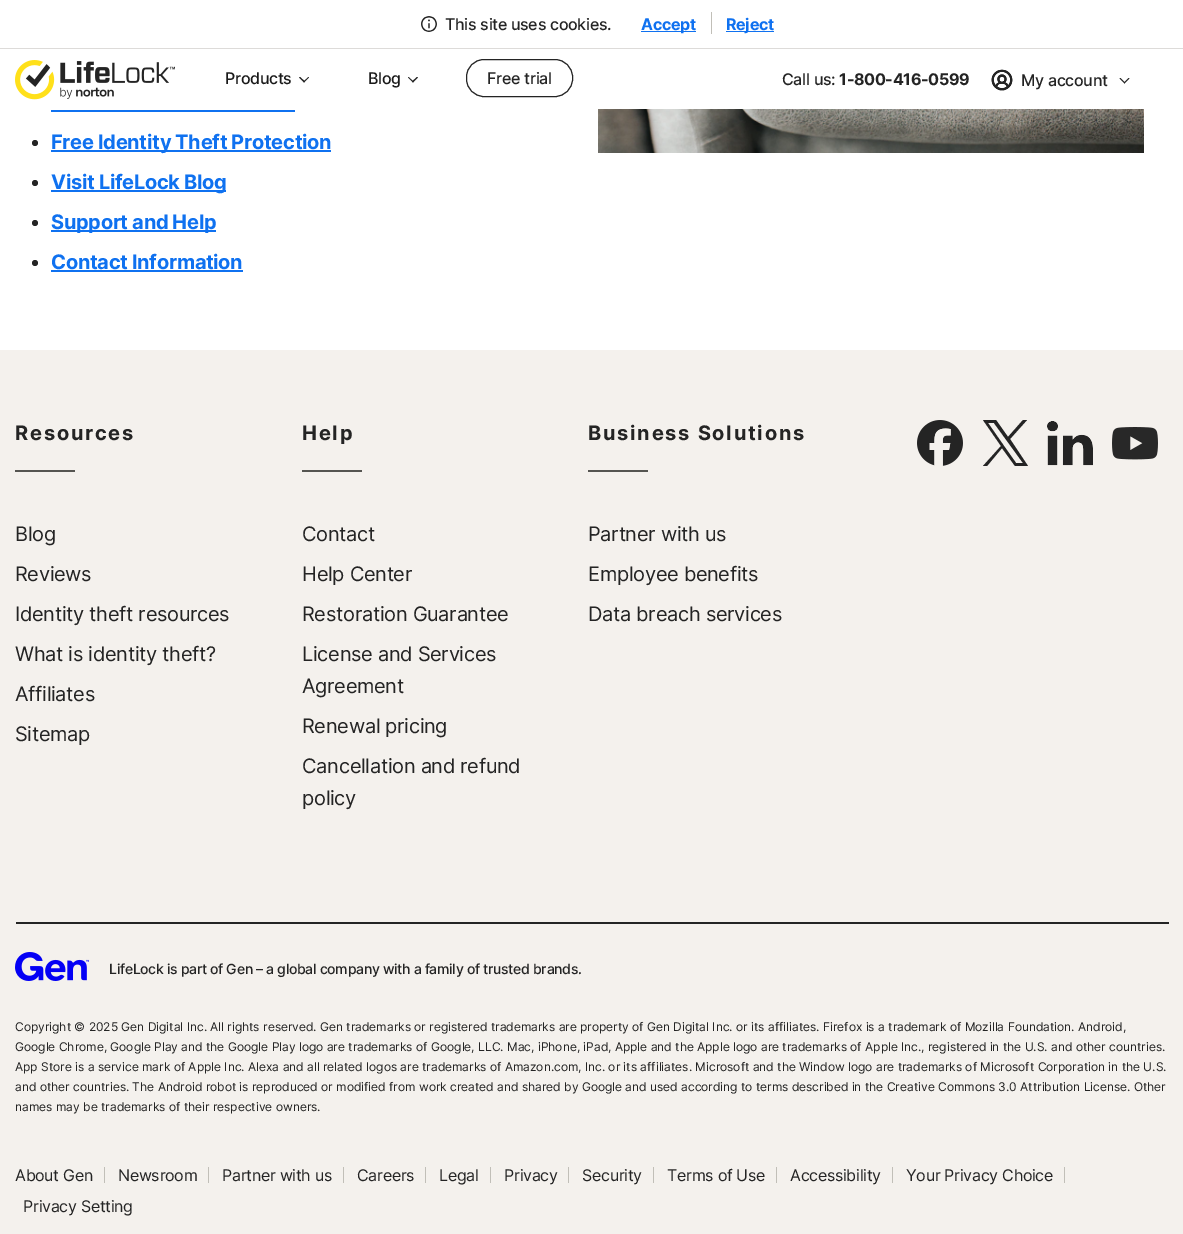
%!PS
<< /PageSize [1183 1234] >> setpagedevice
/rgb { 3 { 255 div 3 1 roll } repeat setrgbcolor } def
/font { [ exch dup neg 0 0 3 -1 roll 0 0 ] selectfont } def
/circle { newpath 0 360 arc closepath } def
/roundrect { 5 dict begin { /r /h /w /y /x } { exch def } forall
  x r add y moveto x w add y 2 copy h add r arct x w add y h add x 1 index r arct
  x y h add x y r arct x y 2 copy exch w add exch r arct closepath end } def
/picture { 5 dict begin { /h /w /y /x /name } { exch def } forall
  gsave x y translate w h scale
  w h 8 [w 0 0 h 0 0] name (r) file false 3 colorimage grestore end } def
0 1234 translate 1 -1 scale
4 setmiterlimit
255 255 255 rgb
0 0 1183 1234 rectfill
221 219 217 rgb
0 48 1183 1 rectfill
(img/1.rgb) 421 16 16 16 picture
[
  [641 31 55 1 15 113 240]
  [711 12 1 22 193 191 184]
  [726 31 48 1 15 113 240]
] { aload pop rgb rectfill } forall
(img/2.rgb) 15 60 160 40 picture
36 36 36 rgb
308.5 77 moveto 309 77.5 lineto 304 82.5 lineto 303.5 81.5 lineto closepath fill
300 77 moveto 305 81.5 lineto 304 82.5 lineto 299 77.5 lineto closepath fill
417 77 moveto 418 77.5 lineto 413 82.5 lineto 412 81.5 lineto closepath fill
408.5 77 moveto 413.5 81.5 lineto 413 82.5 lineto 408 77.5 lineto closepath fill
466.5 59.5 106 37 17.5 roundrect stroke
(img/3.rgb) 991 69 22 22 picture
1128.5 78 moveto 1129.5 78.5 lineto 1124.5 83.5 lineto 1124 82.5 lineto closepath fill
1120.5 78 moveto 1125 82.5 lineto 1124.5 83.5 lineto 1119.5 78.5 lineto closepath fill
15 113 240 rgb
51 110 244 2 rectfill
36 36 36 rgb
35 143 3 circle fill
15 113 240 rgb
51 150 280 2 rectfill
36 36 36 rgb
35 183 3 circle fill
15 113 240 rgb
51 190 175 2 rectfill
36 36 36 rgb
35 223 3 circle fill
15 113 240 rgb
51 230 165 2 rectfill
36 36 36 rgb
35 263 3 circle fill
15 113 240 rgb
51 270 192 2 rectfill
(img/4.rgb) 598 109 546 44 picture
[
  [0 350 1183 884 244 241 237]
  [15 470 60 2 85 85 81]
  [302 470 60 2 85 85 81]
  [588 470 60 2 85 85 81]
] { aload pop rgb rectfill } forall
(img/5.rgb) 917 420 46 46 picture
36 36 36 rgb
1010 439 moveto 1027 420 lineto 1023 420 lineto 1008 437 lineto 996 420 lineto 983 420 lineto 1001 446 lineto 983 466 lineto 987 466 lineto 1002 448 lineto 1015 466 lineto 1028 466 lineto closepath 1004 446 moveto 988 423 lineto 994 423 lineto 1023 463 lineto 1016 463 lineto closepath fill
(img/6.rgb) 1047 421 46 45 picture
(img/7.rgb) 1112 427 46 33 picture
16 922 1153 2 rectfill
(img/8.rgb) 15 952 74 29 picture
193 191 184 rgb
104 1167 1 16 0.5 roundrect fill
208 1167 1 16 0.5 roundrect fill
343 1167 1 16 0.5 roundrect fill
425 1167 1 16 0.5 roundrect fill
490 1167 1 16 0.5 roundrect fill
568 1167 1 16 0.5 roundrect fill
653 1167 1 16 0.5 roundrect fill
776 1167 1 16 0.5 roundrect fill
892 1167 1 16 0.5 roundrect fill
1064 1167 1 16 0.5 roundrect fill
/Inter-Medium 16 font
36 36 36 rgb
445 30 moveto -0.3 0 (This site uses cookies.) ashow
/Inter-Bold 16 font
15 113 240 rgb
641 30 moveto -0.3 0 (Accept) ashow
726 30 moveto -0.3 0 (Reject) ashow
/Inter-Medium 16 font
26 26 26 rgb
225 84 moveto -0.3 0 (Products) ashow
368 84 moveto -0.3 0 (Blog) ashow
36 36 36 rgb
487 84 moveto -0.3 0 (Free trial) ashow
782 85 moveto -0.3 0 (Call us:) ashow
/Inter-Bold 16 font
839 85 moveto -0.3 0 (1-800-416-0599) ashow
/Inter-Medium 16 font
1021 86 moveto -0.3 0 (My account) ashow
/Inter-Bold 20 font
15 113 240 rgb
51 149 moveto -0.3 0 (Free Identity Theft Protection) ashow
51 189 moveto -0.3 0 (Visit LifeLock Blog) ashow
51 229 moveto -0.3 0 (Support and Help) ashow
51 269 moveto -0.3 0 (Contact Information) ashow
36 36 36 rgb
15 440 moveto 1.75 0 (Resources) ashow
/Inter-Regular 20 font
15 541 moveto -0.3 0 (Blog) ashow
15 581 moveto -0.3 0 (Reviews) ashow
15 621 moveto -0.3 0 (Identity theft resources) ashow
15 661 moveto -0.3 0 (What is identity theft?) ashow
15 701 moveto -0.3 0 (Affiliates) ashow
15 741 moveto -0.3 0 (Sitemap) ashow
/Inter-Bold 20 font
302 440 moveto 1.75 0 (Help) ashow
/Inter-Regular 20 font
302 541 moveto -0.3 0 (Contact) ashow
302 581 moveto -0.3 0 (Help Center) ashow
302 621 moveto -0.3 0 (Restoration Guarantee) ashow
302 661 moveto -0.3 0 (License and Services) ashow
302 693 moveto -0.3 0 (Agreement) ashow
302 733 moveto -0.3 0 (Renewal pricing) ashow
302 773 moveto -0.3 0 (Cancellation and refund) ashow
302 805 moveto -0.3 0 (policy) ashow
/Inter-Bold 20 font
588 440 moveto 1.75 0 (Business Solutions) ashow
/Inter-Regular 20 font
588 541 moveto -0.3 0 (Partner with us) ashow
588 581 moveto -0.3 0 (Employee benefits) ashow
588 621 moveto -0.3 0 (Data breach services) ashow
/Inter-Medium 14 font
109 974 moveto -0.3 0 (LifeLock is part of Gen – a global company with a family of trusted brands.) ashow
/Inter-Regular 12 font
[
  [(Copyright © 2025 Gen Digital Inc. All rights reserved. Gen trademarks or registered trademarks are property of Gen Digital Inc. or its affiliates. Firefox is a trademark of Mozilla Foundation. Android,) 15 1031]
  [(Google Chrome, Google Play and the Google Play logo are trademarks of Google, LLC. Mac, iPhone, iPad, Apple and the Apple logo are trademarks of Apple Inc., registered in the U.S. and other countries.) 15 1051]
  [(App Store is a service mark of Apple Inc. Alexa and all related logos are trademarks of Amazon.com, Inc. or its affiliates. Microsoft and the Window logo are trademarks of Microsoft Corporation in the U.S.) 15 1071]
  [(and other countries. The Android robot is reproduced or modified from work created and shared by Google and used according to terms described in the Creative Commons 3.0 Attribution License. Other) 15 1091]
  [(names may be trademarks of their respective owners.) 15 1111]
] { aload pop moveto show } forall
/Inter-Regular 16 font
15 1181 moveto -0.3 0 (About Gen) ashow
118 1181 moveto -0.3 0 (Newsroom) ashow
222 1181 moveto -0.3 0 (Partner with us) ashow
357 1181 moveto -0.3 0 (Careers) ashow
439 1181 moveto -0.3 0 (Legal) ashow
504 1181 moveto -0.3 0 (Privacy) ashow
582 1181 moveto -0.3 0 (Security) ashow
667 1181 moveto -0.3 0 (Terms of Use) ashow
790 1181 moveto -0.3 0 (Accessibility) ashow
906 1181 moveto -0.3 0 (Your Privacy Choice) ashow
23 1212 moveto -0.3 0 (Privacy Setting) ashow
showpage
